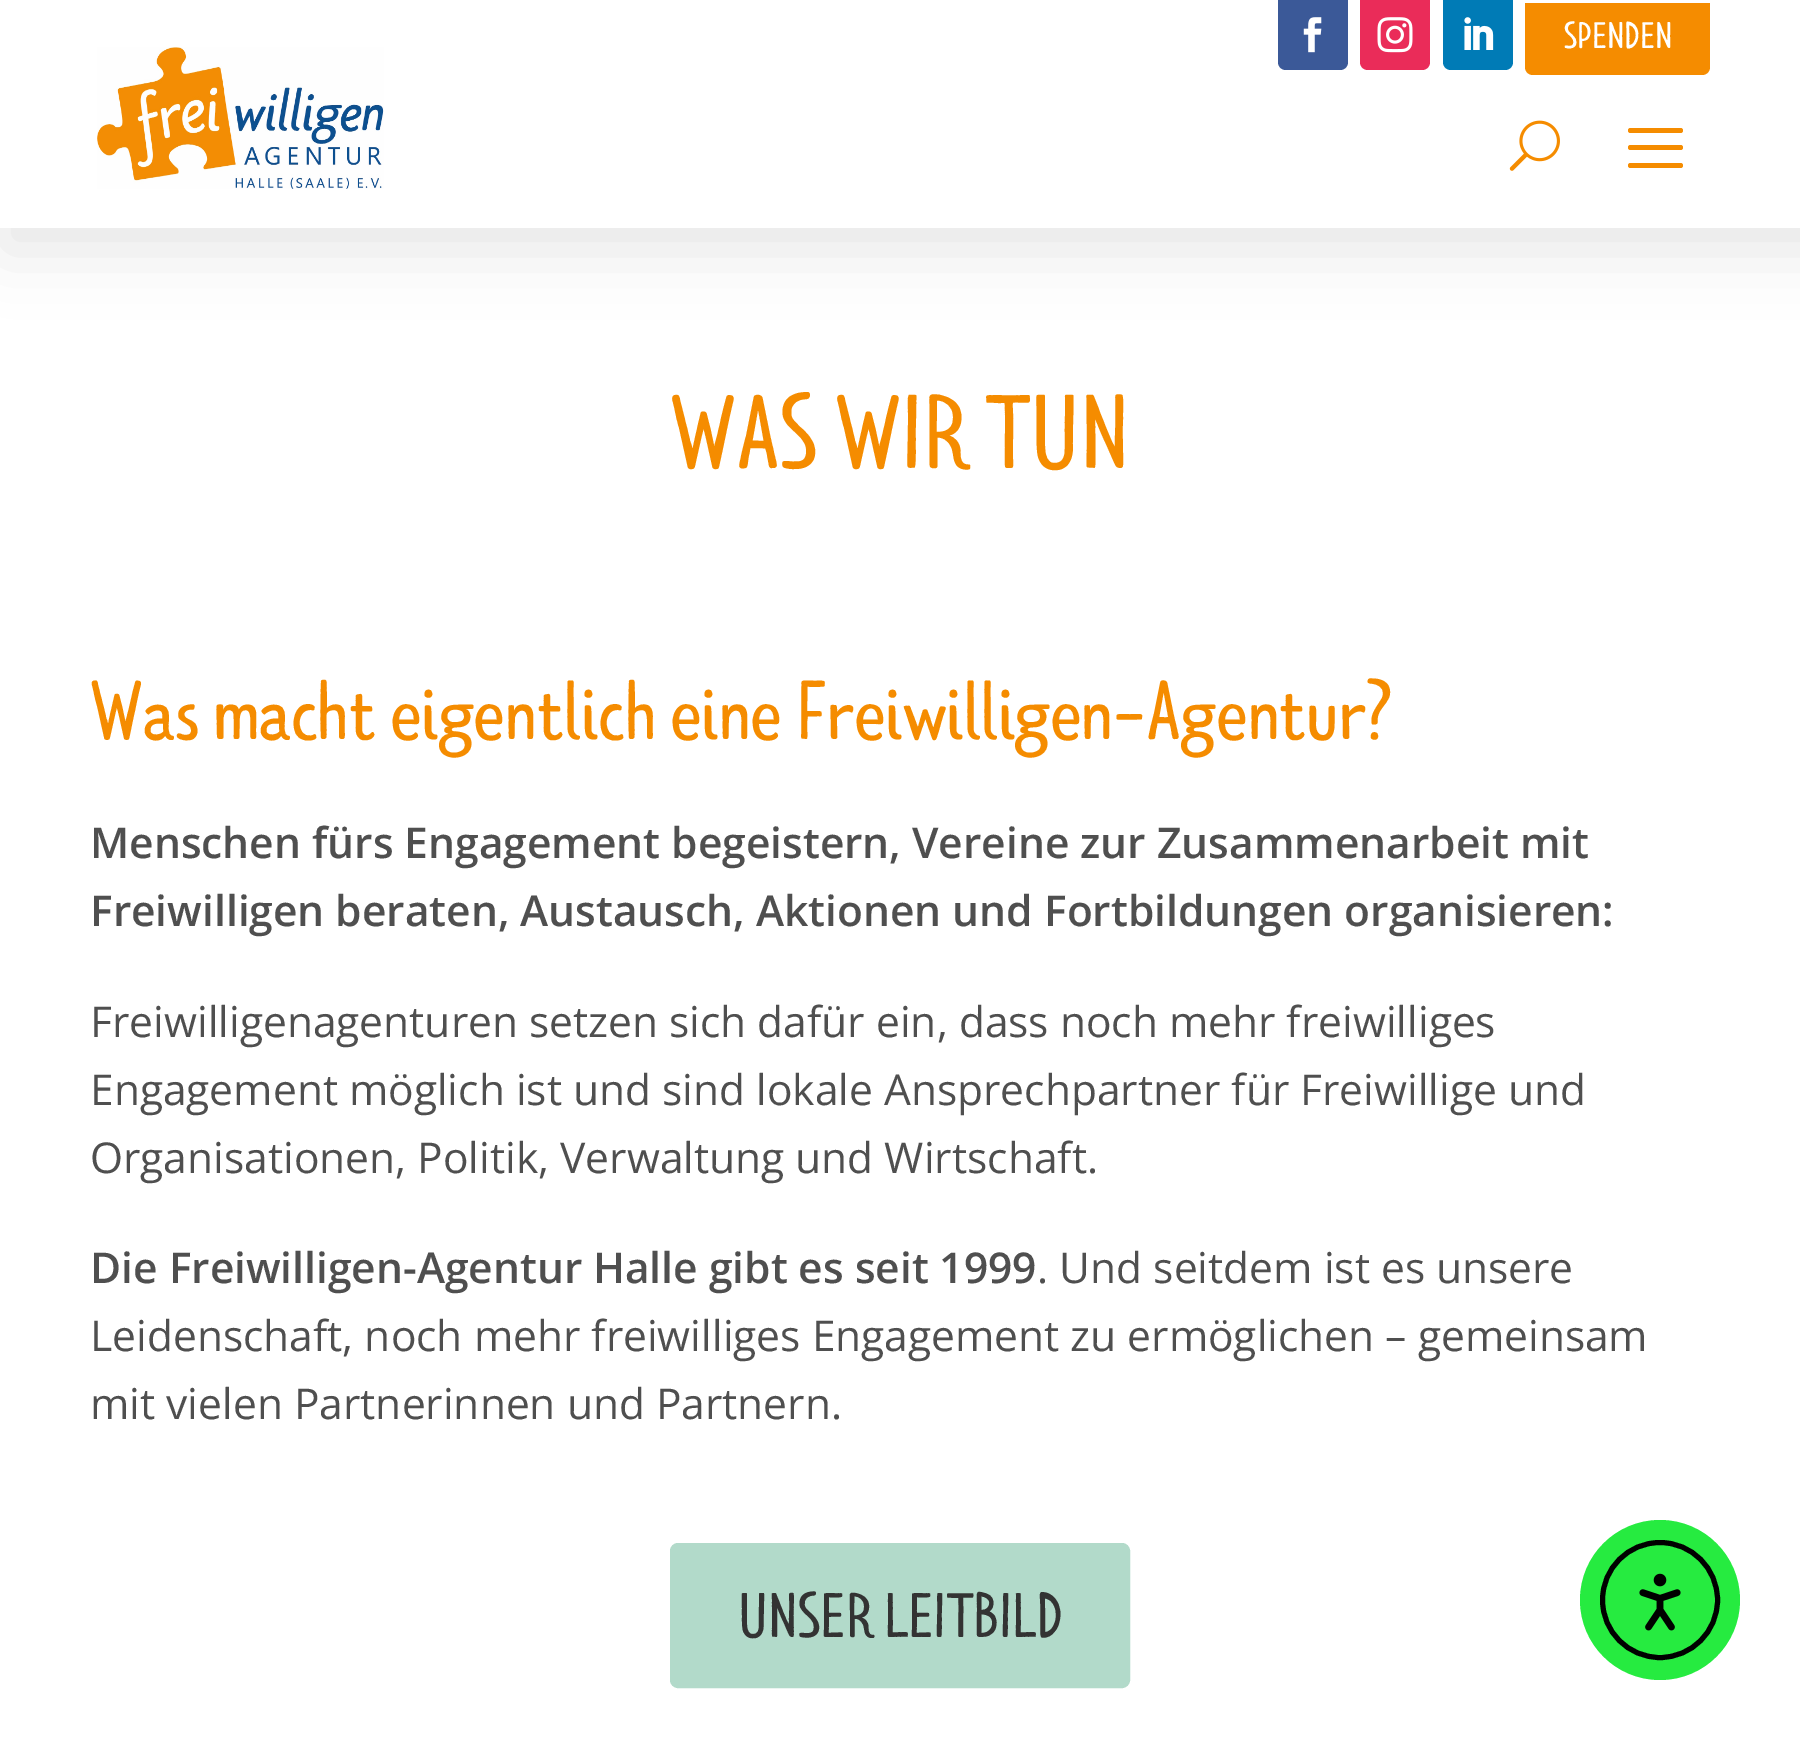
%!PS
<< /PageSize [1800 1740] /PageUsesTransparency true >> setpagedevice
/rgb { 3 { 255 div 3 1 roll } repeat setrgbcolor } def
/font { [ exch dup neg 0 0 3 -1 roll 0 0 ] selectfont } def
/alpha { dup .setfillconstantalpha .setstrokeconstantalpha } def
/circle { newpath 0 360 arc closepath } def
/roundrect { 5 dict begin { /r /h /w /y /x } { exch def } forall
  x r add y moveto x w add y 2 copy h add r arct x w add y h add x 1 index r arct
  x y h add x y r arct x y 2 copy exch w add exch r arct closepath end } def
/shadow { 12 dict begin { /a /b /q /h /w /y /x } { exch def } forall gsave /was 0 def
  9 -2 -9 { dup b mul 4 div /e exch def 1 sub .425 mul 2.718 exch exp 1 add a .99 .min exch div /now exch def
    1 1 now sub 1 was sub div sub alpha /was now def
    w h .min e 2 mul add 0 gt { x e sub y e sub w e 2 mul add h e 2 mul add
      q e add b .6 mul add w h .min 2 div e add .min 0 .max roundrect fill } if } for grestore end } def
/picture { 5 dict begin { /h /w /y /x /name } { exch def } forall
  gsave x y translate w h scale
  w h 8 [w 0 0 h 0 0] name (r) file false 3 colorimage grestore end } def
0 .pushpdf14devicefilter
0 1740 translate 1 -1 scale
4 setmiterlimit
255 255 255 rgb
0 0 1800 1740 rectfill
0 0 0 rgb
3 3 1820 247 0 31 0.1 shadow
255 255 255 rgb
0 0 1800 228 rectfill
59 89 152 rgb
1278 0 moveto 1348 0 lineto 1348 62 lineto 1348 66.5 1344.5 70 1340 70 curveto 1286 70 lineto 1281.5 70 1278 66.5 1278 62 curveto closepath fill
(img/1.rgb) 1303 17 19 36 picture
234 44 89 rgb
1360 0 moveto 1430 0 lineto 1430 62 lineto 1430 66.5 1426.5 70 1422 70 curveto 1368 70 lineto 1363.5 70 1360 66.5 1360 62 curveto closepath fill
(img/2.rgb) 1377 17 36 36 picture
0 123 182 rgb
1443 0 moveto 1513 0 lineto 1513 62 lineto 1513 66.5 1509.5 70 1505 70 curveto 1451 70 lineto 1446.5 70 1443 66.5 1443 62 curveto closepath fill
(img/3.rgb) 1464 17 30 33 picture
245 140 0 rgb
1525 3 moveto 1710 3 lineto 1710 67 lineto 1710 71.5 1706.5 75 1702 75 curveto 1533 75 lineto 1528.5 75 1525 71.5 1525 67 curveto closepath fill
(img/4.rgb) 97 47 287 142 picture
(img/5.rgb) 1509 120 51 51 picture
1628 145 55 5 2.5 roundrect fill
1628 128 55 5 2.5 roundrect fill
1628 163 55 5 2.5 roundrect fill
178 218 202 rgb
672.5 1545.5 455 140 5.5 roundrect gsave fill grestore
5 setlinewidth
stroke
38 235 64 rgb
1660 1600 80 circle fill
0 0 0 rgb
1660 1600 57.5 circle stroke
(img/6.rgb) 1639 1573 42 58 picture
/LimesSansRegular-Regular 37.5 font
255 255 255 rgb
1564 48 moveto (SPENDEN) show
/LimesSansRegular-Regular 106.25 font
245 140 0 rgb
670 468 moveto (WAS WIR TUN) show
/LimesSansRegular-Regular 85 font
90 739 moveto (Was macht eigentlich eine Freiwilligen-Agentur?) show
/OpenSans-SemiBold 42.5 font
79 79 79 rgb
90 858 moveto (Menschen fürs Engagement begeistern, Vereine zur Zusammenarbeit mit) show
90 926 moveto (Freiwilligen beraten, Austausch, Aktionen und Fortbildungen organisieren:) show
/OpenSans-Regular 42.5 font
[
  [(Freiwilligenagenturen setzen sich dafür ein, dass noch mehr freiwilliges) 90 1037]
  [(Engagement möglich ist und sind lokale Ansprechpartner für Freiwillige und) 90 1105]
  [(Organisationen, Politik, Verwaltung und Wirtschaft.) 90 1173]
] { aload pop moveto show } forall
/OpenSans-SemiBold 42.5 font
90 1283 moveto (Die Freiwilligen-Agentur Halle gibt es seit 1999) show
/OpenSans-Regular 42.5 font
[
  [(. Und seitdem ist es unsere) 1037 1283]
  [(Leidenschaft, noch mehr freiwilliges Engagement zu ermöglichen – gemeinsam) 90 1351]
  [(mit vielen Partnerinnen und Partnern.) 90 1419]
] { aload pop moveto show } forall
/LimesSansRegular-Regular 63.75 font
51 51 51 rgb
738 1637 moveto (UNSER LEITBILD) show
.poppdf14devicefilter showpage
